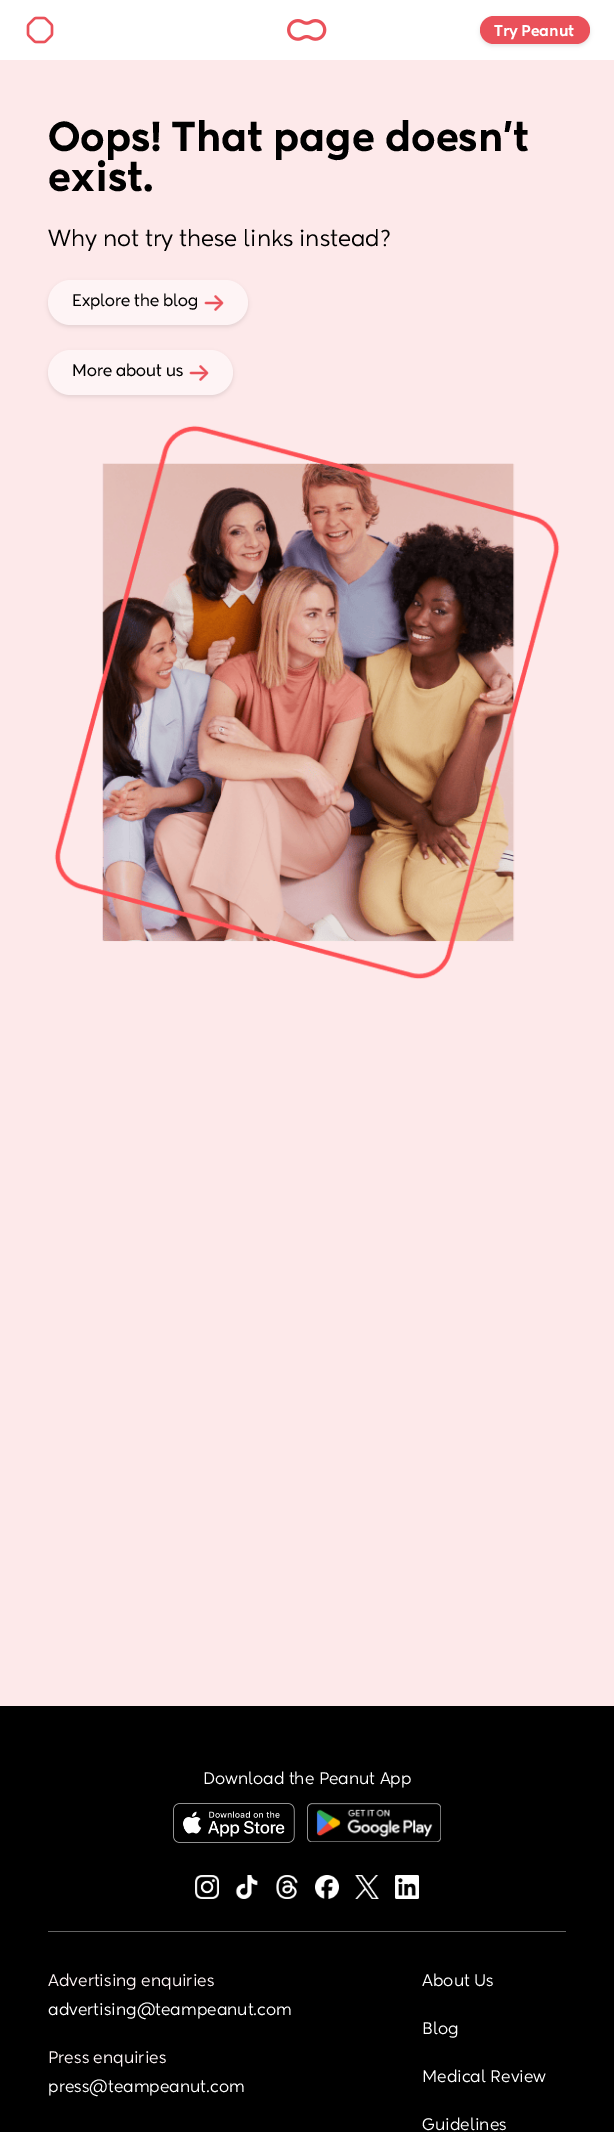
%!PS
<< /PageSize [614 2132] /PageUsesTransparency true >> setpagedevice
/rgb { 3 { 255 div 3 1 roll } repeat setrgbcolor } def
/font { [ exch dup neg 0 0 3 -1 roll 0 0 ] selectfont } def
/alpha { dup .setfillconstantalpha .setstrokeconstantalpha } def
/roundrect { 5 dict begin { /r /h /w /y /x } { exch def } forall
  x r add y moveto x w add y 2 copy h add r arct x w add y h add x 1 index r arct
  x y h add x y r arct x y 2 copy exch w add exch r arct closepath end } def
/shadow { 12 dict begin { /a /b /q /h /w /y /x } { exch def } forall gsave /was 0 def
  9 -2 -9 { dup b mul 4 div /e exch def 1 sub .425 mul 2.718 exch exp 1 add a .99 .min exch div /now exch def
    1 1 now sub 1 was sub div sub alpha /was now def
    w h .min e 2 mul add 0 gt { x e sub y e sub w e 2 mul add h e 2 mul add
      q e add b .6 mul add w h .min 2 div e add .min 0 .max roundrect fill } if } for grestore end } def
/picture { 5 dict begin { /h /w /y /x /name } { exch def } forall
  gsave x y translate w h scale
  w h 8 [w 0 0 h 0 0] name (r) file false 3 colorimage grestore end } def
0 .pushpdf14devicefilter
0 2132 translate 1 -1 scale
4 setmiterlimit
253 233 234 rgb
0 0 614 2132 rectfill
255 255 255 rgb
0 0 614 60 rectfill
(img/1.rgb) 26 16 28 28 picture
(img/2.rgb) 287 19 40 22 picture
0 0 0 rgb
480 18 110 28 14 2 0.1 shadow
234 81 90 rgb
480 16 110 28 14 roundrect fill
0 0 0 rgb
48 282 200 45 22.5 2 0.1 shadow
254 244 245 rgb
48 280 200 45 22.5 roundrect fill
(img/3.rgb) 204 295 20 16 picture
0 0 0 rgb
48 352 185 45 22.5 2 0.1 shadow
254 244 245 rgb
48 350 185 45 22.5 roundrect fill
(img/3.rgb) 189 365 20 16 picture
(img/4.rgb) 54 425 506 554 picture
0 0 0 rgb
0 1706 614 426 rectfill
(img/5.rgb) 173 1803 122 40 picture
(img/6.rgb) 307 1803 134 39 picture
(img/7.rgb) 195 1875 24 24 picture
(img/8.rgb) 235 1875 23 24 picture
(img/9.rgb) 276 1875 22 24 picture
(img/10.rgb) 315 1875 24 24 picture
(img/11.rgb) 355 1875 24 24 picture
(img/12.rgb) 395 1875 24 24 picture
99 99 99 rgb
48 1931 518 1 rectfill
/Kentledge-Black 15 font
255 255 255 rgb
494 36 moveto (Try Peanut) show
/Kentledge-Black 40 font
0 0 0 rgb
48 151 moveto (Oops! That page doesn’t) show
48 191 moveto (exist.) show
/Kentledge-Regular 22 font
48 246 moveto (Why not try these links instead?) show
/Kentledge-Medium 16 font
72 306 moveto (Explore the blog) show
72 376 moveto (More about us) show
/Kentledge-Regular 16 font
255 255 255 rgb
203 1784 moveto (Download the Peanut App) show
254 244 245 rgb
48 1986 moveto (Advertising enquiries) show
255 255 255 rgb
48 2015 moveto (advertising@teampeanut.com) show
254 244 245 rgb
48 2063 moveto (Press enquiries) show
255 255 255 rgb
[
  [(press@teampeanut.com) 48 2092]
  [(About Us) 422 1986]
  [(Blog) 422 2034]
  [(Medical Review) 422 2082]
  [(Guidelines) 422 2130]
] { aload pop moveto show } forall
.poppdf14devicefilter showpage
